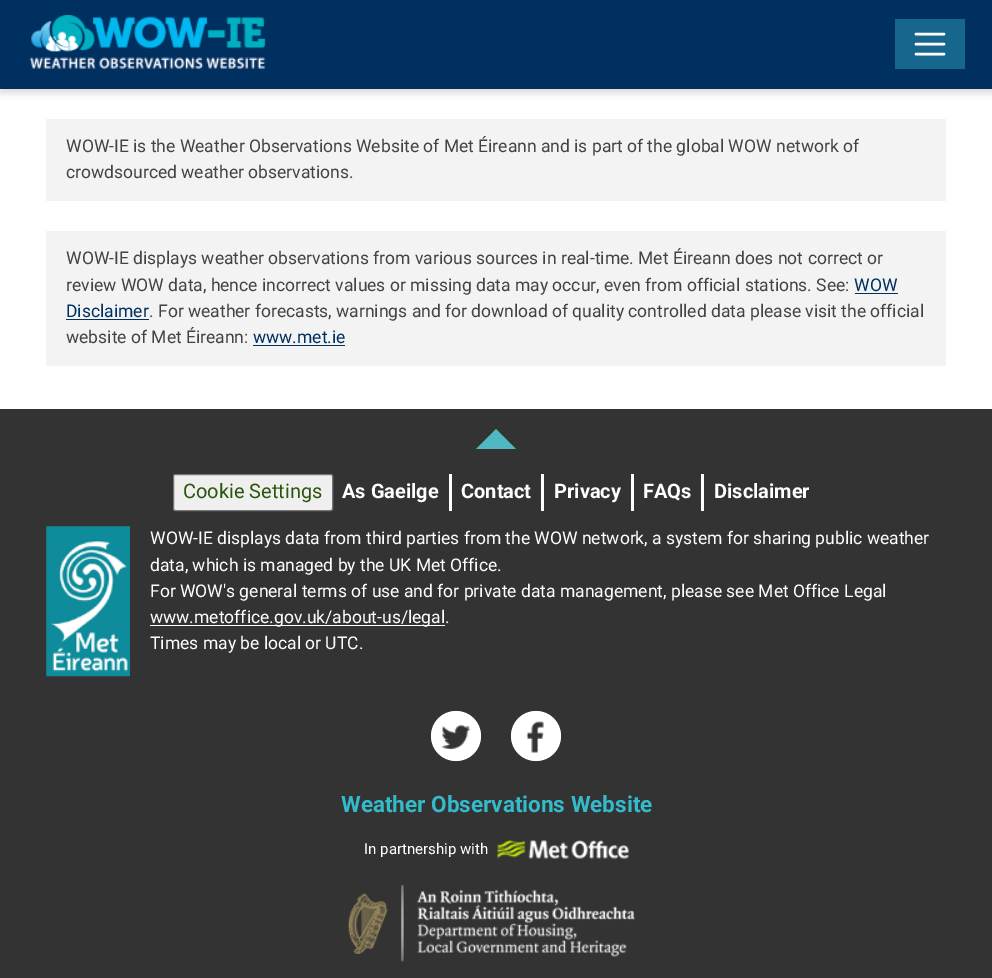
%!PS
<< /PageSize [992 978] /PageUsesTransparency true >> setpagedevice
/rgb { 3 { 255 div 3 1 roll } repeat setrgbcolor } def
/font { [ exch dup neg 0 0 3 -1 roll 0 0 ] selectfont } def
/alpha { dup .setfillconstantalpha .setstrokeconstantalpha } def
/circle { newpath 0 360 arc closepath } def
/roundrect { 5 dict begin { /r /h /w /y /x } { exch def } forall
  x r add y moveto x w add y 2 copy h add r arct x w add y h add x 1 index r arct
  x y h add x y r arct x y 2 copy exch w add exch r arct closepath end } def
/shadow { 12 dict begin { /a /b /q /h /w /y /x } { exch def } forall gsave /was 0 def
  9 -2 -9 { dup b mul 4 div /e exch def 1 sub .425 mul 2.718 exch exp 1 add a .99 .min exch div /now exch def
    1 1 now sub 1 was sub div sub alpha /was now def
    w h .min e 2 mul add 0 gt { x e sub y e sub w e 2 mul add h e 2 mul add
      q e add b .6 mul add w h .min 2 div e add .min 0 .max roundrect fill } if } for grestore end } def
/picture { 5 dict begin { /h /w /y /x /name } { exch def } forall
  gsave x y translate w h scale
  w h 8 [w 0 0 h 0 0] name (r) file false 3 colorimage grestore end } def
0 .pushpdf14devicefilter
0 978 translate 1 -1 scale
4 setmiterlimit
255 255 255 rgb
0 0 992 978 rectfill
0 0 0 rgb
0 4 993 89 0 4 0.15 shadow
0 48 95 rgb
0 0 992 89 rectfill
(img/1.rgb) 29 15 237 54 picture
22 102 142 rgb
895 19 70 50 rectfill
255 255 255 rgb
2.5 setlinewidth
1 setlinecap
916 34 moveto 944 34 lineto 916 44 moveto 944 44 lineto 916 54 moveto 944 54 lineto stroke
[
  [46 119 900 82 243 243 243]
  [46 231 900 135 243 243 243]
  [855 293 43 1 0 48 95]
  [66 319 83 1 0 48 95]
  [253 345 92 1 0 48 95]
  [0 409 992 569 51 51 51]
] { aload pop rgb rectfill } forall
81 184 193 rgb
516 449 moveto 476 449 lineto 496 429 lineto closepath fill
239 239 239 rgb
173.5 474.5 159 36 2 roundrect gsave fill grestore
118 118 118 rgb
1 setlinewidth
0 setlinecap
stroke
[
  [449 474 3 37 255 255 255]
  [541 474 3 37 255 255 255]
  [631 474 3 37 255 255 255]
  [701 474 3 37 255 255 255]
] { aload pop rgb rectfill } forall
(img/2.rgb) 46 526 84 151 picture
150 625 295 1 rectfill
456 736 25 circle fill
(img/3.rgb) 441 724 30 26 picture
536 736 25 circle fill
(img/4.rgb) 526 721 18 32 picture
(img/5.rgb) 497 840 132 19 picture
(img/6.rgb) 348 885 288 77 picture
/Roboto-Regular 17.5 font
67 67 67 rgb
[
  [(WOW-IE is the Weather Observations Website of Met Éireann and is part of the global WOW network of) 66 152]
  [(crowdsourced weather observations.) 66 178]
  [(WOW-IE displays weather observations from various sources in real-time. Met Éireann does not correct or) 66 264]
  [(review WOW data, hence incorrect values or missing data may occur, even from official stations. See:) 66 291]
] { aload pop moveto show } forall
0 48 95 rgb
854 291 moveto (WOW) show
66 317 moveto (Disclaimer) show
67 67 67 rgb
149 317 moveto (. For weather forecasts, warnings and for download of quality controlled data please visit the official) show
66 343 moveto (website of Met Éireann:) show
0 48 95 rgb
253 343 moveto (www.met.ie) show
/Roboto-Regular 20 font
42 85 11 rgb
183 498 moveto (Cookie Settings) show
/Roboto-Bold 20 font
255 255 255 rgb
[
  [(As Gaeilge) 342 498]
  [(Contact) 461 498]
  [(Privacy) 554 498]
  [(FAQs) 643 498]
  [(Disclaimer) 714 498]
] { aload pop moveto show } forall
/Roboto-Regular 17.5 font
[
  [(WOW-IE displays data from third parties from the WOW network, a system for sharing public weather) 150 544]
  [(data, which is managed by the UK Met Office.) 150 571]
  [(For WOW's general terms of use and for private data management, please see Met Office Legal) 150 597]
  [(www.metoffice.gov.uk/about-us/legal.) 150 623]
  [(Times may be local or UTC.) 150 649]
] { aload pop moveto show } forall
/Roboto-Bold 22.5 font
51 187 203 rgb
341 812 moveto (Weather Observations Website) show
/Roboto-Regular 15 font
255 255 255 rgb
364 854 moveto (In partnership with) show
.poppdf14devicefilter showpage
